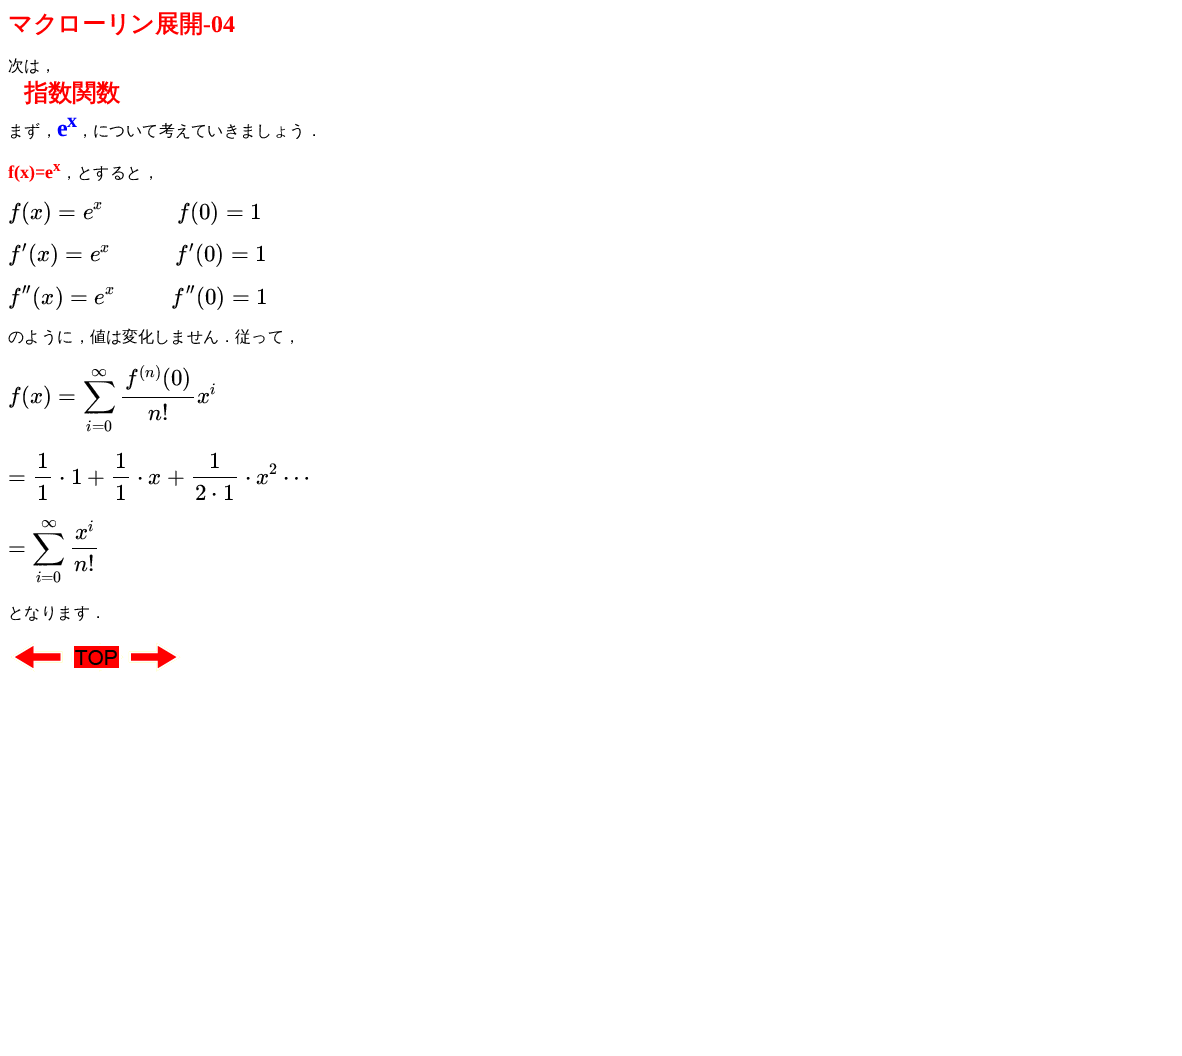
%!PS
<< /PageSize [1182 1056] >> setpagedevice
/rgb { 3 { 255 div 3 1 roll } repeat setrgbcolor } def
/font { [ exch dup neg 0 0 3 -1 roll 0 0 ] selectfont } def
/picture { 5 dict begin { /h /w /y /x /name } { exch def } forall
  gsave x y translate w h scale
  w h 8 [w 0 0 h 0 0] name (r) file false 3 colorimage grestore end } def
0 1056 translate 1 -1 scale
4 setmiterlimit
255 255 255 rgb
0 0 1182 1056 rectfill
[
  [122 397 72 1 0 0 0]
  [35 477 16 1 0 0 0]
  [113 477 16 1 0 0 0]
  [193 477 44 1 0 0 0]
  [72 548 25 1 0 0 0]
] { aload pop rgb rectfill } forall
(img/1.rgb) 11 643 52 29 picture
(img/2.rgb) 71 643 53 29 picture
(img/3.rgb) 128 643 53 29 picture
/WenQuanYiZenHei-Bold 24 font
255 0 0 rgb
8 32 moveto (マクローリン展開) show
/LiberationSerif-Bold 24 font
203 32 moveto (-04) show
/WenQuanYiZenHei-Medium 16 font
0 0 0 rgb
8 71 moveto (次は，) show
/WenQuanYiZenHei-Bold 24 font
255 0 0 rgb
24 101 moveto (指数関数) show
/WenQuanYiZenHei-Medium 16 font
0 0 0 rgb
8 136 moveto (まず，) show
/LiberationSerif-Bold 24 font
0 0 255 rgb
57 136 moveto (e) show
/LiberationSerif-Bold 20 font
67 127 moveto (x) show
/WenQuanYiZenHei-Medium 16 font
0 0 0 rgb
77 136 moveto (，について考えていきましょう．) show
/LiberationSerif-Bold 18 font
255 0 0 rgb
8 178 moveto (f\(x\)=e) show
/LiberationSerif-Bold 15 font
53 171 moveto (x) show
/WenQuanYiZenHei-Medium 16 font
0 0 0 rgb
61 178 moveto (，とすると，) show
/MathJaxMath-Italic 23 font
8 219 moveto (f) show
/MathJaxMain-Regular 23 font
21 219 moveto (\() show
/MathJaxMath-Italic 23 font
30 219 moveto (x) show
/MathJaxMain-Regular 23 font
43 219 moveto (\)) show
58 219 moveto (=) show
/MathJaxMath-Italic 16 font
93 209 moveto (x) show
/MathJaxMath-Italic 23 font
83 219 moveto (e) show
177 219 moveto (f) show
/MathJaxMain-Regular 23 font
[
  [(\(0\)) 190 219]
  [(=) 226 219]
  [(1) 250 219]
] { aload pop moveto show } forall
/MathJaxMath-Italic 23 font
8 261 moveto (f) show
/MathJaxMain-Regular 16 font
22 252 moveto (′) show
/MathJaxMain-Regular 23 font
28 261 moveto (\() show
/MathJaxMath-Italic 23 font
37 261 moveto (x) show
/MathJaxMain-Regular 23 font
50 261 moveto (\)) show
65 261 moveto (=) show
/MathJaxMath-Italic 16 font
100 252 moveto (x) show
/MathJaxMath-Italic 23 font
90 261 moveto (e) show
175 261 moveto (f) show
/MathJaxMain-Regular 16 font
189 252 moveto (′) show
/MathJaxMain-Regular 23 font
[
  [(\(0\)) 195 261]
  [(=) 231 261]
  [(1) 255 261]
] { aload pop moveto show } forall
/MathJaxMath-Italic 23 font
8 304 moveto (f) show
/MathJaxMain-Regular 16 font
22 294 moveto (′′) show
/MathJaxMain-Regular 23 font
32 304 moveto (\() show
/MathJaxMath-Italic 23 font
41 304 moveto (x) show
/MathJaxMain-Regular 23 font
55 304 moveto (\)) show
70 304 moveto (=) show
/MathJaxMath-Italic 16 font
105 294 moveto (x) show
/MathJaxMath-Italic 23 font
94 304 moveto (e) show
171 304 moveto (f) show
/MathJaxMain-Regular 16 font
186 294 moveto (′′) show
/MathJaxMain-Regular 23 font
[
  [(\(0\)) 196 304]
  [(=) 232 304]
  [(1) 256 304]
] { aload pop moveto show } forall
/WenQuanYiZenHei-Medium 16 font
8 342 moveto (のように，値は変化しません．従って，) show
/MathJaxMath-Italic 23 font
8 403 moveto (f) show
/MathJaxMain-Regular 23 font
21 403 moveto (\() show
/MathJaxMath-Italic 23 font
30 403 moveto (x) show
/MathJaxMain-Regular 23 font
43 403 moveto (\)) show
58 403 moveto (=) show
/MathJaxMain-Regular 16 font
91 376 moveto (∞) show
/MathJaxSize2-Regular 23 font
83 403 moveto (∑) show
/MathJaxMath-Italic 16 font
86 431 moveto (i) show
/MathJaxMain-Regular 16 font
92 431 moveto (=0) show
/MathJaxMath-Italic 23 font
125 385 moveto (f) show
/MathJaxMain-Regular 16 font
139 377 moveto (\() show
/MathJaxMath-Italic 16 font
145 377 moveto (n) show
/MathJaxMain-Regular 16 font
155 377 moveto (\)) show
/MathJaxMain-Regular 23 font
162 385 moveto (\(0\)) show
/MathJaxMath-Italic 23 font
148 420 moveto (n) show
/MathJaxMain-Regular 23 font
162 420 moveto (!) show
/MathJaxMath-Italic 16 font
210 394 moveto (i) show
/MathJaxMath-Italic 23 font
197 403 moveto (x) show
/MathJaxMain-Regular 23 font
[
  [(=) 8 484]
  [(1) 37 468]
  [(1) 37 500]
  [(⋅) 59 484]
  [(1) 71 484]
  [(+) 87 484]
  [(1) 115 468]
  [(1) 115 500]
  [(⋅) 137 484]
] { aload pop moveto show } forall
/MathJaxMath-Italic 23 font
148 484 moveto (x) show
/MathJaxMain-Regular 23 font
[
  [(+) 167 484]
  [(1) 209 468]
  [(2) 195 500]
  [(⋅) 211 500]
  [(1) 223 500]
  [(⋅) 245 484]
] { aload pop moveto show } forall
/MathJaxMain-Regular 16 font
269 474 moveto (2) show
/MathJaxMath-Italic 23 font
256 484 moveto (x) show
/MathJaxMain-Regular 23 font
283 484 moveto (⋯) show
8 555 moveto (=) show
/MathJaxMain-Regular 16 font
41 527 moveto (∞) show
/MathJaxSize2-Regular 23 font
32 555 moveto (∑) show
/MathJaxMath-Italic 16 font
36 582 moveto (i) show
/MathJaxMain-Regular 16 font
41 582 moveto (=0) show
/MathJaxMath-Italic 16 font
88 531 moveto (i) show
/MathJaxMath-Italic 23 font
75 539 moveto (x) show
74 571 moveto (n) show
/MathJaxMain-Regular 23 font
88 571 moveto (!) show
/WenQuanYiZenHei-Medium 16 font
8 618 moveto (となります．) show
showpage
